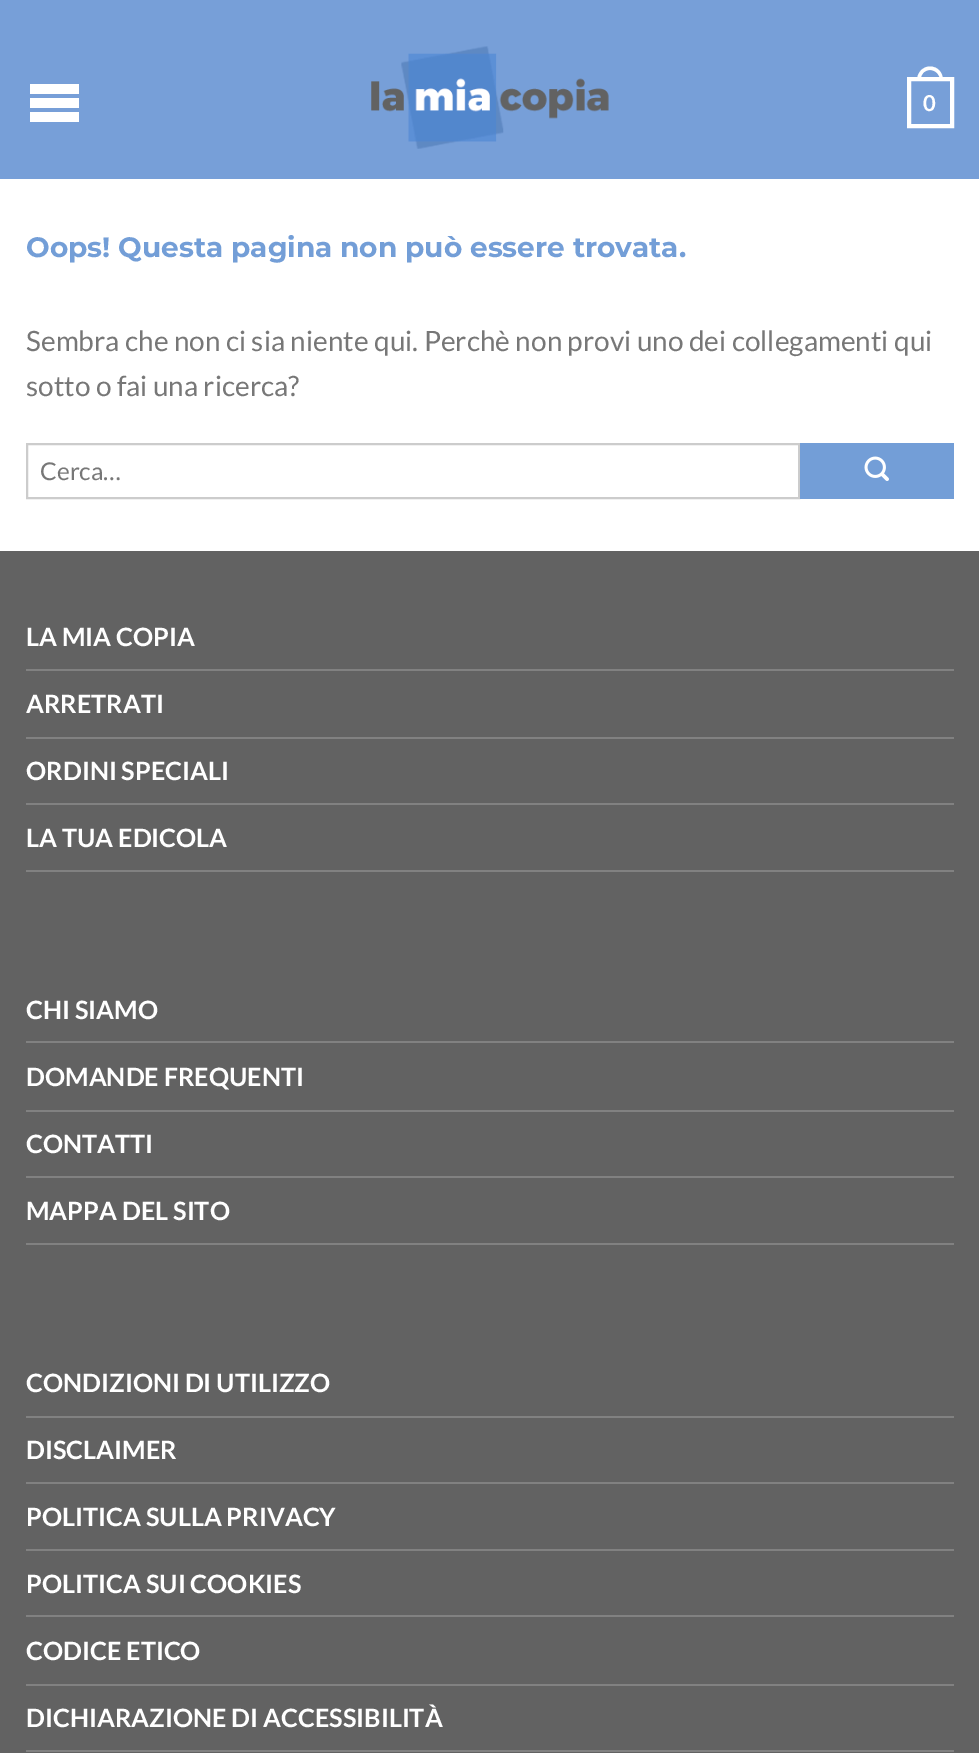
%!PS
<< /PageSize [979 1753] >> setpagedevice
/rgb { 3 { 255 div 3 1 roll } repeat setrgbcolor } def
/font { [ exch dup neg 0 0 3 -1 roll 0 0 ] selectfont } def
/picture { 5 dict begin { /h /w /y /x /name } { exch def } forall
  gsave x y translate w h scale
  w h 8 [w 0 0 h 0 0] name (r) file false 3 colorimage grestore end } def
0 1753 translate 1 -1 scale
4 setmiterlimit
255 255 255 rgb
0 0 979 1753 rectfill
119 159 216 rgb
0 0 979 179 rectfill
255 255 255 rgb
30 84 moveto 79 84 lineto 79 94 lineto 30 94 lineto closepath 30 98 moveto 79 98 lineto 79 108 lineto 30 108 lineto closepath 30 112 moveto 79 112 lineto 79 122 lineto 30 122 lineto closepath fill
(img/1.rgb) 371 46 238 103 picture
930 66.5 moveto 938 66.5 943 73 943 80.5 curveto 917 80.5 lineto 917 73 922.5 66.5 930 66.5 curveto closepath 930 70 moveto 936 70 940 75 940 80.5 curveto 920.5 80.5 lineto 920.5 75 924 70 930 70 curveto closepath eofill
4 setlinewidth
909 79 43 47 rectstroke
204 204 204 rgb
2 setlinewidth
27 444 772 54 rectstroke
115 158 215 rgb
800 443 154 56 rectfill
(img/2.rgb) 864 456 25 25 picture
[
  [0 551 979 1202 98 98 98]
  [26 669 928 2 129 129 129]
  [26 737 928 2 129 129 129]
  [26 803 928 2 129 129 129]
  [26 870 928 2 129 129 129]
  [26 1041 928 2 129 129 129]
  [26 1110 928 2 129 129 129]
  [26 1176 928 2 129 129 129]
  [26 1243 928 2 129 129 129]
  [26 1416 928 2 129 129 129]
  [26 1482 928 2 129 129 129]
  [26 1549 928 2 129 129 129]
  [26 1615 928 2 129 129 129]
  [26 1684 928 2 129 129 129]
  [26 1750 928 2 129 129 129]
] { aload pop rgb rectfill } forall
/Lato-Bold 22 font
255 255 255 rgb
923 111 moveto (0) show
/Montserrat-Bold 28 font
115 158 215 rgb
26 257 moveto (Oops! Questa pagina non può essere trovata.) show
/Lato-Regular 28 font
119 119 119 rgb
26 351 moveto (Sembra che non ci sia niente qui. Perchè non provi uno dei collegamenti qui) show
26 396 moveto (sotto o fai una ricerca?) show
/Lato-Regular 24.5 font
40 480 moveto (Cerca…) show
/Lato-Bold 25.25 font
255 255 255 rgb
[
  [(LA MIA COPIA) 26 646]
  [(ARRETRATI) 26 713]
  [(ORDINI SPECIALI) 26 780]
  [(LA TUA EDICOLA) 26 847]
  [(CHI SIAMO) 26 1019]
  [(DOMANDE FREQUENTI) 26 1086]
  [(CONTATTI) 26 1153]
  [(MAPPA DEL SITO) 26 1220]
  [(CONDIZIONI DI UTILIZZO) 26 1392]
  [(DISCLAIMER) 26 1459]
  [(POLITICA SULLA PRIVACY) 26 1526]
  [(POLITICA SUI COOKIES) 26 1593]
  [(CODICE ETICO) 26 1660]
  [(DICHIARAZIONE DI ACCESSIBILITÀ) 26 1727]
] { aload pop moveto show } forall
showpage
